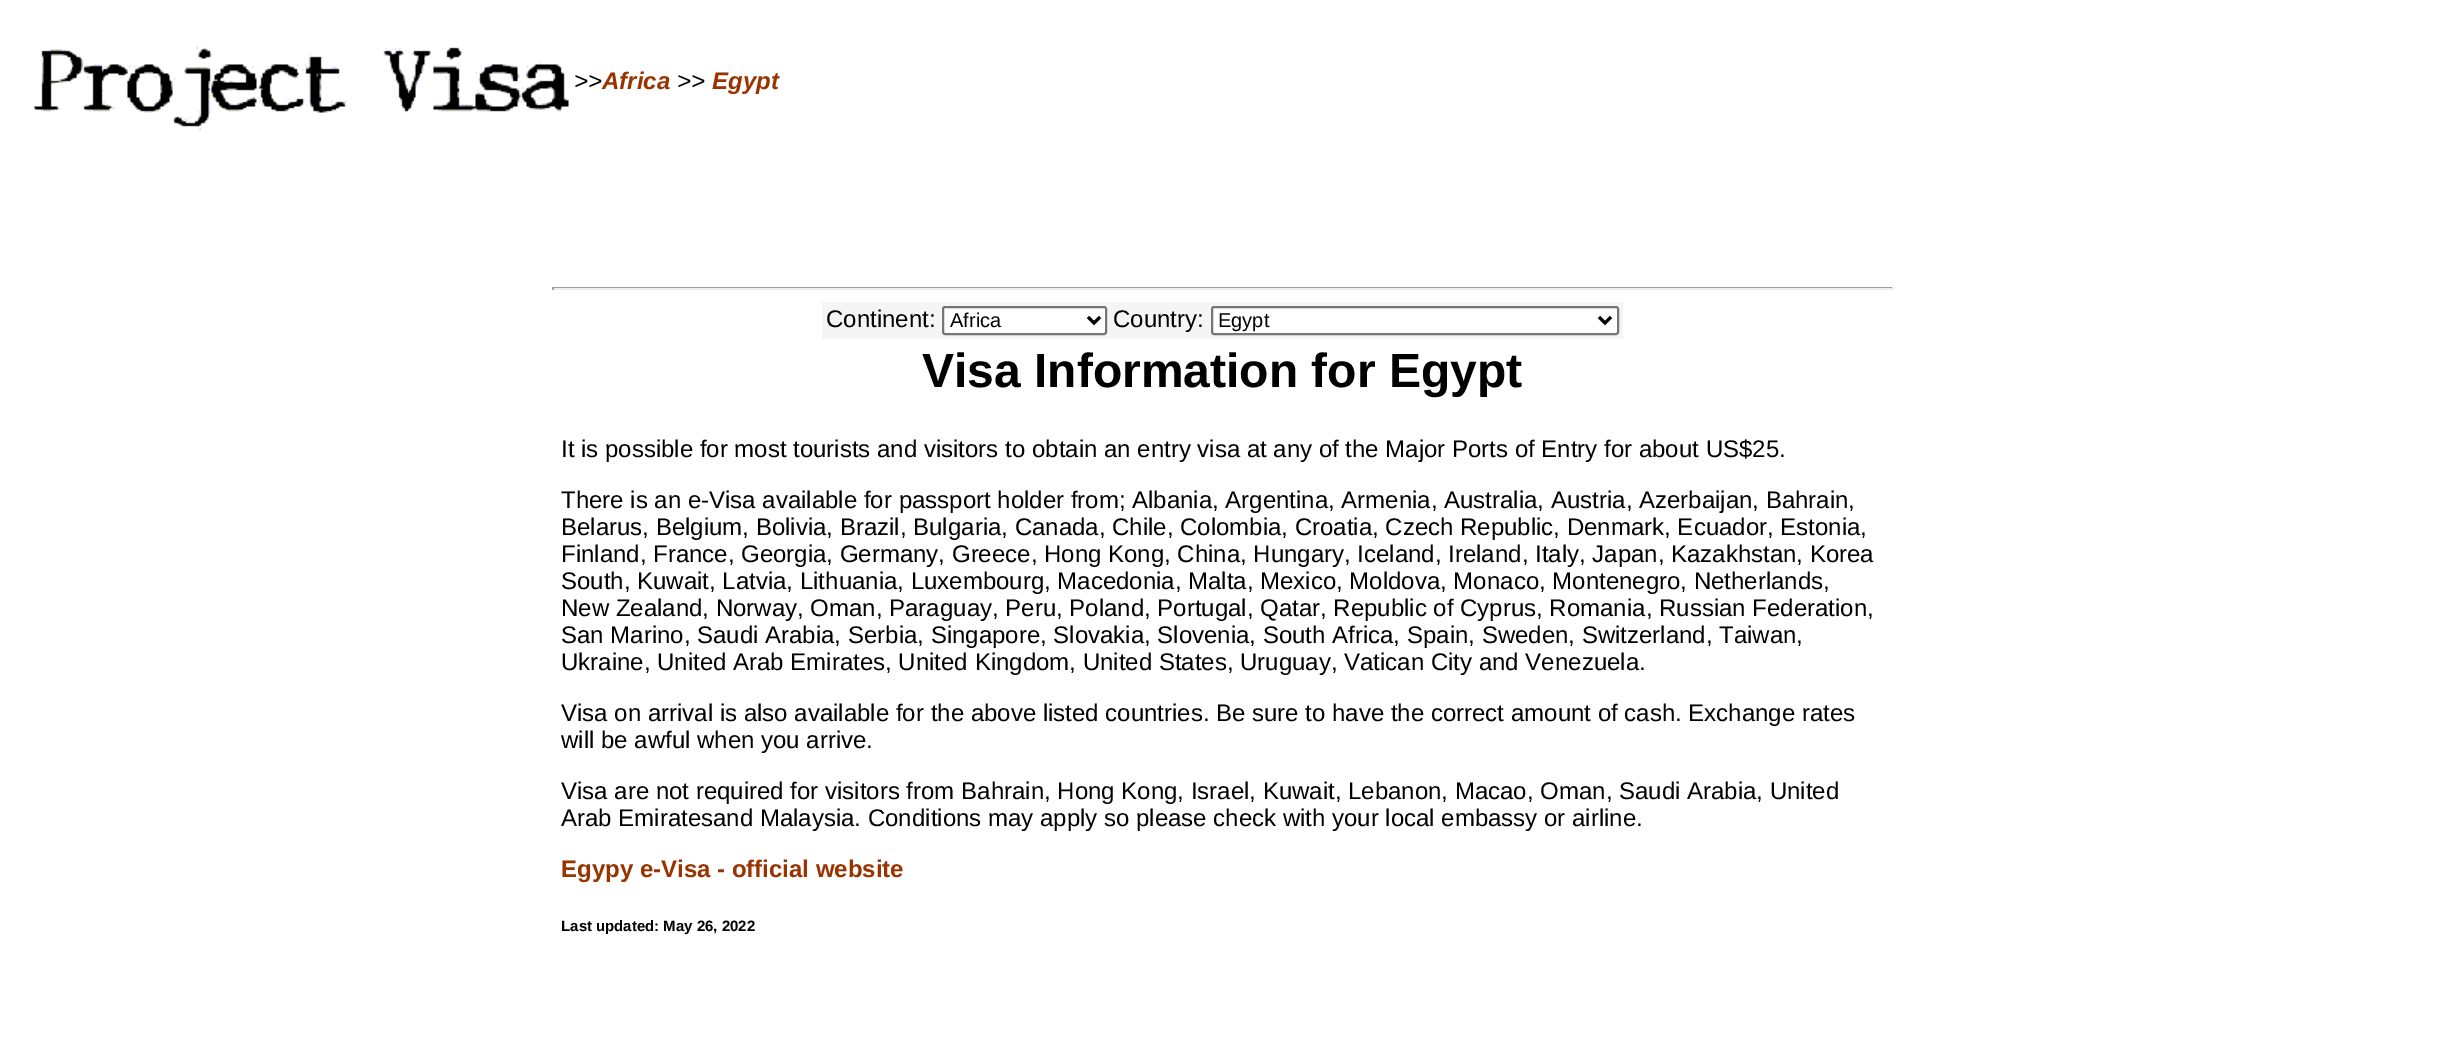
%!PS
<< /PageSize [2445 1041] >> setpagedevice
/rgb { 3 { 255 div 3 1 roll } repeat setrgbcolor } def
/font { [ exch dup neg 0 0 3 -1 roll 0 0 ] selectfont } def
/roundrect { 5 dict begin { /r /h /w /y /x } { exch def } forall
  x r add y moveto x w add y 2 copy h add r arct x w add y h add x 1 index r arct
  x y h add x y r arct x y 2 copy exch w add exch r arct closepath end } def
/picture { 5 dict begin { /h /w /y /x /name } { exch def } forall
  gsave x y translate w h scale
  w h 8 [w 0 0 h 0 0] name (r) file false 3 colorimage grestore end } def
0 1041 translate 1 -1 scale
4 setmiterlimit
255 255 255 rgb
0 0 2445 1041 rectfill
(img/1.rgb) 34 46 535 85 picture
[
  [552 287 1341 1 159 159 159]
  [1892 287 2 3 238 238 238]
  [552 288 1341 2 238 238 238]
  [552 287 2 3 159 159 159]
  [822 302 801 37 245 245 245]
] { aload pop rgb rectfill } forall
255 255 255 rgb
943 307 163 27 2 roundrect gsave fill grestore
118 118 118 rgb
2 setlinewidth
stroke
0 0 0 rgb
3 setlinewidth
1088 317 moveto 1094 323 lineto 1100 317 lineto stroke
255 255 255 rgb
1212 307 406 27 2 roundrect gsave fill grestore
118 118 118 rgb
2 setlinewidth
stroke
0 0 0 rgb
3 setlinewidth
1599 317 moveto 1605 323 lineto 1611 317 lineto stroke
/LiberationSans-Italic 24 font
574 89 moveto (>>) show
/LiberationSans-BoldItalic 24 font
153 51 0 rgb
602 89 moveto (Africa) show
/LiberationSans-Italic 24 font
0 0 0 rgb
677 89 moveto (>>) show
/LiberationSans-BoldItalic 24 font
153 51 0 rgb
712 89 moveto (Egypt) show
/LiberationSans-Regular 24 font
0 0 0 rgb
826 327 moveto (Continent:) show
/LiberationSans-Regular 20 font
950 327 moveto (Africa) show
/LiberationSans-Regular 24 font
1113 327 moveto (Country:) show
/LiberationSans-Regular 20 font
1218 327 moveto (Egypt) show
/LiberationSans-Bold 48 font
922 387 moveto (Visa Information for Egypt) show
/LiberationSans-Regular 24 font
[
  [(It is possible for most tourists and visitors to obtain an entry visa at any of the Major Ports of Entry for about US$25.) 561 457]
  [(There is an e-Visa available for passport holder from; Albania, Argentina, Armenia, Australia, Austria, Azerbaijan, Bahrain,) 561 508]
  [(Belarus, Belgium, Bolivia, Brazil, Bulgaria, Canada, Chile, Colombia, Croatia, Czech Republic, Denmark, Ecuador, Estonia,) 561 535]
  [(Finland, France, Georgia, Germany, Greece, Hong Kong, China, Hungary, Iceland, Ireland, Italy, Japan, Kazakhstan, Korea) 561 562]
  [(South, Kuwait, Latvia, Lithuania, Luxembourg, Macedonia, Malta, Mexico, Moldova, Monaco, Montenegro, Netherlands,) 561 589]
  [(New Zealand, Norway, Oman, Paraguay, Peru, Poland, Portugal, Qatar, Republic of Cyprus, Romania, Russian Federation,) 561 616]
  [(San Marino, Saudi Arabia, Serbia, Singapore, Slovakia, Slovenia, South Africa, Spain, Sweden, Switzerland, Taiwan,) 561 643]
  [(Ukraine, United Arab Emirates, United Kingdom, United States, Uruguay, Vatican City and Venezuela.) 561 670]
  [(Visa on arrival is also available for the above listed countries. Be sure to have the correct amount of cash. Exchange rates) 561 721]
  [(will be awful when you arrive.) 561 748]
  [(Visa are not required for visitors from Bahrain, Hong Kong, Israel, Kuwait, Lebanon, Macao, Oman, Saudi Arabia, United) 561 799]
  [(Arab Emiratesand Malaysia. Conditions may apply so please check with your local embassy or airline.) 561 826]
] { aload pop moveto show } forall
/LiberationSans-Bold 24 font
153 51 0 rgb
561 877 moveto (Egypy e-Visa - official website) show
/LiberationSans-Bold 15 font
0 0 0 rgb
561 931 moveto (Last updated: May 26, 2022) show
showpage
